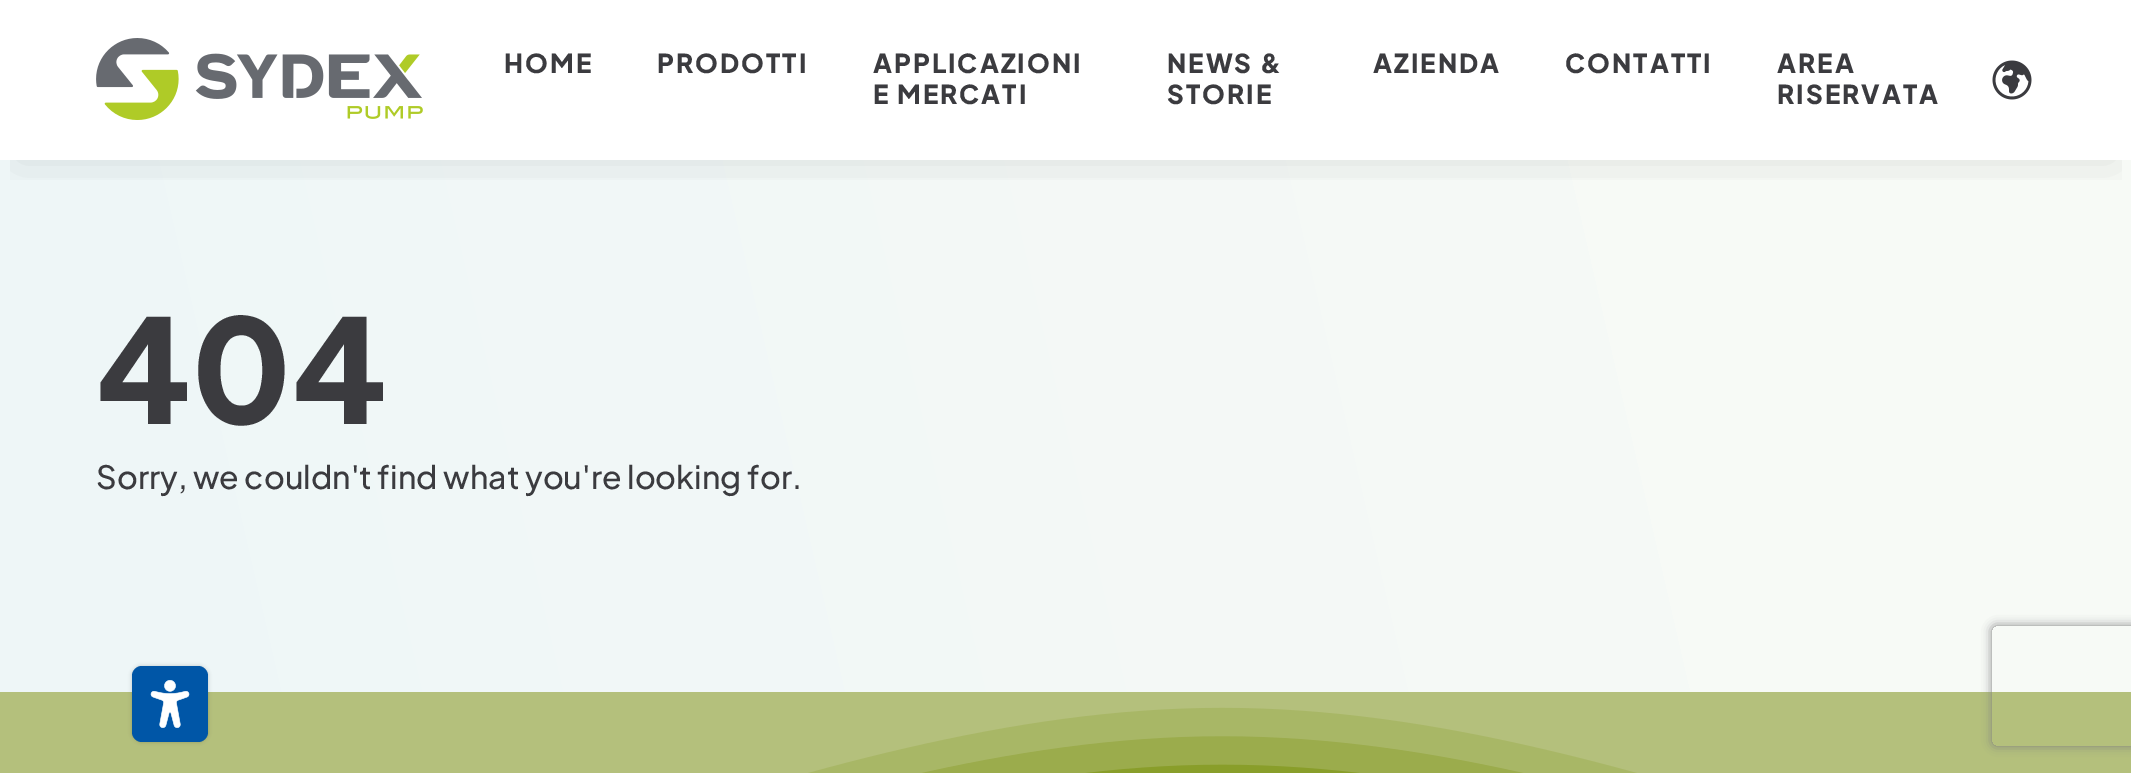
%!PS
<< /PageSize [2131 773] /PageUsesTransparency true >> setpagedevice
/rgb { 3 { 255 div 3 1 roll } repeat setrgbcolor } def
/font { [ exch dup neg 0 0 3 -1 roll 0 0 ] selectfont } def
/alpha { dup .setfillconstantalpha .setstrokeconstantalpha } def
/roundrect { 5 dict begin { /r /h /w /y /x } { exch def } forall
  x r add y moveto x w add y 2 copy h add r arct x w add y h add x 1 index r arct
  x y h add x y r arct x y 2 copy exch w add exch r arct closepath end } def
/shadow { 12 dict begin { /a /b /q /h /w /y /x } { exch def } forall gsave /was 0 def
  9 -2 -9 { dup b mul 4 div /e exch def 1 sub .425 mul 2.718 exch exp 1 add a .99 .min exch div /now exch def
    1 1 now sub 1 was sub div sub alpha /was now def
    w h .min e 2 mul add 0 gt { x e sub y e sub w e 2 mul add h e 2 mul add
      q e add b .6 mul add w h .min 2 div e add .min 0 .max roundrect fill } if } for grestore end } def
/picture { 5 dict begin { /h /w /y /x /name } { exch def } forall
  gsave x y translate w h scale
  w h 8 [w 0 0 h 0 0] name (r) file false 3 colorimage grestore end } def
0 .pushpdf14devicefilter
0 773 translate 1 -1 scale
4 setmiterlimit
255 255 255 rgb
0 0 2131 773 rectfill
gsave 0 160 moveto 2131 160 lineto 2131 692 lineto 0 692 lineto closepath clip newpath
<< /ShadingType 2 /ColorSpace /DeviceRGB /Coords [-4.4 673 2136 179] /Extend [true true] /Function << /FunctionType 3 /Domain [0 1] /Functions [<< /FunctionType 2 /Domain [0 1] /C0 [0.933 0.965 0.969] /C1 [0.969 0.98 0.965] /N 1 >> << /FunctionType 2 /Domain [0 1] /C0 [0.969 0.98 0.965] /C1 [0.969 0.98 0.965] /N 1 >>] /Bounds [0.81] /Encode [0 1 0 1] >> >> shfill grestore
gsave
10 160 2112 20 rectclip
0 0 0 rgb
16 32 2100 128 0 24 0.1 shadow
grestore
(img/1.rgb) 96 38 327 82 picture
(img/2.rgb) 1992 60 40 40 picture
115 140 0 rgb
0 692 2131 81 rectfill
(img/4.rgb) 0 692 2131 81 picture
0 0 0 rgb
132 666 76 76 10 2 0.2 shadow
0 86 167 rgb
132 666 76 76 10 roundrect fill
(img/3.rgb) 150 680 40 48 picture
gsave
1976 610 moveto 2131 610 lineto 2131 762 lineto 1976 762 lineto closepath 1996 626 moveto 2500 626 lineto 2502 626 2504 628 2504 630 curveto 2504 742 lineto 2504 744 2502 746 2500 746 curveto 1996 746 lineto 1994 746 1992 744 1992 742 curveto 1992 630 lineto 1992 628 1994 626 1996 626 curveto closepath eoclip newpath
128 128 128 rgb
1992 626 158 120 4 5 1 shadow
grestore
/PlusJakartaSans-ExtraBold 26 font
59 59 63 rgb
504 73 moveto 2 0 (HOME) ashow
657 73 moveto 2 0 (PRODOTTI) ashow
873 73 moveto 2 0 (APPLICAZIONI) ashow
873 104 moveto 2 0 (E MERCATI) ashow
1167 73 moveto 2 0 (NEWS &) ashow
1167 104 moveto 2 0 (STORIE) ashow
1373 73 moveto 2 0 (AZIENDA) ashow
1565 73 moveto 2 0 (CONTATTI) ashow
1777 73 moveto 2 0 (AREA) ashow
1777 104 moveto 2 0 (RISERVATA) ashow
/PlusJakartaSans-ExtraBold 144 font
96 424 moveto (404) show
/PlusJakartaSans-Medium 32 font
96 489 moveto (Sorry, we couldn't find what you're looking for.) show
.poppdf14devicefilter showpage
